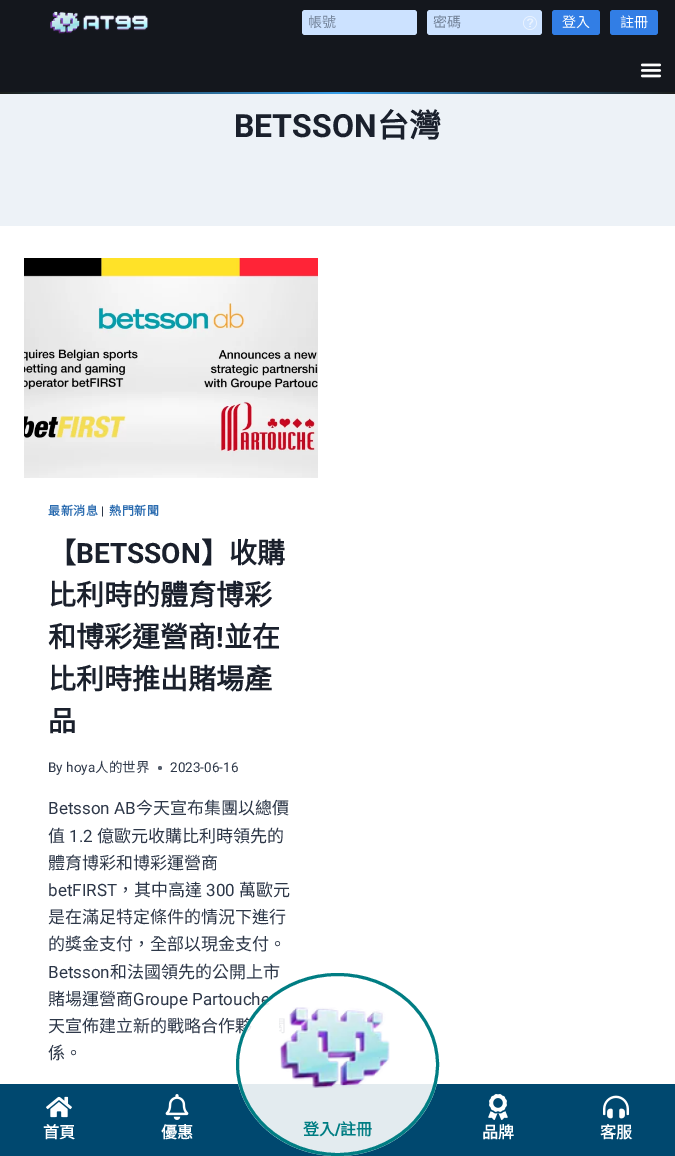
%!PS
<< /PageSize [675 1156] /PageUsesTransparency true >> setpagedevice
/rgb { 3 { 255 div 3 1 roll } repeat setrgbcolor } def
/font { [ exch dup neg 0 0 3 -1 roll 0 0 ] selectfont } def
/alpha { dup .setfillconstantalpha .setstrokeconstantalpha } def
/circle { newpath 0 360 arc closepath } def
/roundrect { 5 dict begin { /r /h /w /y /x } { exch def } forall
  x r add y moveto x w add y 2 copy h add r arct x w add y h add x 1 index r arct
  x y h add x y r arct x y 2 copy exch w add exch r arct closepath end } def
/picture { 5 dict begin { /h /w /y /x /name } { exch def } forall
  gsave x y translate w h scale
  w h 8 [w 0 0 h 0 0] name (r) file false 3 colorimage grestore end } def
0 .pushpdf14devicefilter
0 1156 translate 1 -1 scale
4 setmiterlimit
255 255 255 rgb
0 0 675 1156 rectfill
20 23 29 rgb
0 0 675 92 rectfill
(img/1.rgb) 50 11 99 23 picture
204 226 255 rgb
302 10 115 25 3 roundrect fill
427 10 115 25 3 roundrect fill
(img/2.rgb) 523 16 14 14 picture
50 126 229 rgb
552 10 48 25 3 roundrect fill
610 10 48 25 3 roundrect fill
(img/3.rgb) 640 63 22 15 picture
gsave 0 92 moveto 675 92 lineto 675 94 lineto 0 94 lineto closepath clip newpath
<< /ShadingType 2 /ColorSpace /DeviceRGB /Coords [0 93 675 93] /Extend [true true] /Function << /FunctionType 3 /Domain [0 1] /Functions [<< /FunctionType 2 /Domain [0 1] /C0 [0.106 0.118 0.102] /C1 [0.224 0.624 0.91] /N 1 >> << /FunctionType 2 /Domain [0 1] /C0 [0.224 0.624 0.91] /C1 [0.11 0.118 0.11] /N 1 >>] /Bounds [0.5] /Encode [0 1 0 1] >> >> shfill grestore
237 242 247 rgb
0 94 675 132 rectfill
(img/4.rgb) 24 258 294 220 picture
87 95 109 rgb
160 768 2 circle fill
0 72 111 rgb
0 1084 675 72 rectfill
(img/5.rgb) 46 1096 26 22 picture
(img/6.rgb) 165 1094 24 26 picture
(img/8.rgb) 488 1094 20 26 picture
(img/9.rgb) 603 1095 26 24 picture
/NotoSansCJKTC-Regular 14 font
113 128 150 rgb
308 27 moveto (帳號) show
433 27 moveto (密碼) show
255 255 255 rgb
562 27 moveto (登入) show
620 27 moveto (註冊) show
/Roboto-Bold 32 font
26 32 44 rgb
234 137 moveto (BETSSON) show
/NotoSansCJKTC-Bold 32 font
377 137 moveto (台灣) show
/NotoSansCJKTC-Bold 12 font
43 108 176 rgb
48 515 moveto 0.5 0 (最新消息) ashow
/Roboto-Regular 12 font
45 55 72 rgb
101 515 moveto 0.5 0 (|) ashow
/NotoSansCJKTC-Bold 12 font
43 108 176 rgb
109 515 moveto 0.5 0 (熱門新聞) ashow
/NotoSansCJKTC-Bold 28 font
26 32 44 rgb
48 563 moveto (【) show
/Roboto-Bold 28 font
76 563 moveto (BETSSON) show
/NotoSansCJKTC-Bold 28 font
[
  [(】收購) 201 563]
  [(比利時的體育博彩) 48 605]
  [(和博彩運營商) 48 647]
] { aload pop moveto show } forall
/Roboto-Bold 28 font
216 647 moveto (!) show
/NotoSansCJKTC-Bold 28 font
[
  [(並在) 224 647]
  [(比利時推出賭場產) 48 689]
  [(品) 48 731]
] { aload pop moveto show } forall
/Roboto-Regular 13.5 font
45 55 72 rgb
48 772 moveto (By hoya) show
/NotoSansCJKTC-Regular 13.5 font
95 772 moveto (人的世界) show
/Roboto-Regular 13.5 font
170 772 moveto (2023-06-16) show
/Roboto-Regular 17 font
48 814 moveto (Betsson AB) show
/NotoSansCJKTC-Regular 17 font
136 814 moveto (今天宣布集團以總價) show
48 842 moveto (值) show
/Roboto-Regular 17 font
69 842 moveto (1.2) show
/NotoSansCJKTC-Regular 17 font
97 842 moveto (億歐元收購比利時領先的) show
48 869 moveto (體育博彩和博彩運營商) show
/Roboto-Regular 17 font
48 896 moveto (betFIRST) show
/NotoSansCJKTC-Regular 17 font
117 896 moveto (，其中高達) show
/Roboto-Regular 17 font
206 896 moveto (300) show
/NotoSansCJKTC-Regular 17 font
[
  [(萬歐元) 239 896]
  [(是在滿足特定條件的情況下進行) 48 923]
  [(的獎金支付，全部以現金支付。) 48 950]
] { aload pop moveto show } forall
/Roboto-Regular 17 font
48 978 moveto (Betsson) show
/NotoSansCJKTC-Regular 17 font
110 978 moveto (和法國領先的公開上市) show
48 1005 moveto (賭場運營商) show
/Roboto-Regular 17 font
133 1005 moveto (Groupe Partouche) show
/NotoSansCJKTC-Regular 17 font
48 1032 moveto (天宣佈建立新的戰略合作夥) show
48 1059 moveto (係。) show
/NotoSansCJKTC-Bold 16 font
255 255 255 rgb
43 1138 moveto (首頁) show
161 1138 moveto (優惠) show
0.89 alpha
337.5 973 moveto 393.5 973 439 1014 439 1064.5 curveto 439 1115 393.5 1156 337.5 1156 curveto 281.5 1156 236 1115 236 1064.5 curveto 236 1014 281.5 973 337.5 973 curveto closepath fill
1 alpha
0 125 131 rgb
3 setlinewidth
337.5 974.5 moveto 392.5 974.5 437.5 1015 437.5 1064.5 curveto 437.5 1114 392.5 1154.5 337.5 1154.5 curveto 282.5 1154.5 237.5 1114 237.5 1064.5 curveto 237.5 1015 282.5 974.5 337.5 974.5 curveto closepath stroke
(img/7.rgb) 279 1007 111 81 picture
303 1135 moveto (登入) show
/Roboto-Black 16 font
335 1135 moveto (/) show
/NotoSansCJKTC-Bold 16 font
340 1135 moveto (註冊) show
255 255 255 rgb
482 1138 moveto (品牌) show
600 1138 moveto (客服) show
.poppdf14devicefilter showpage
